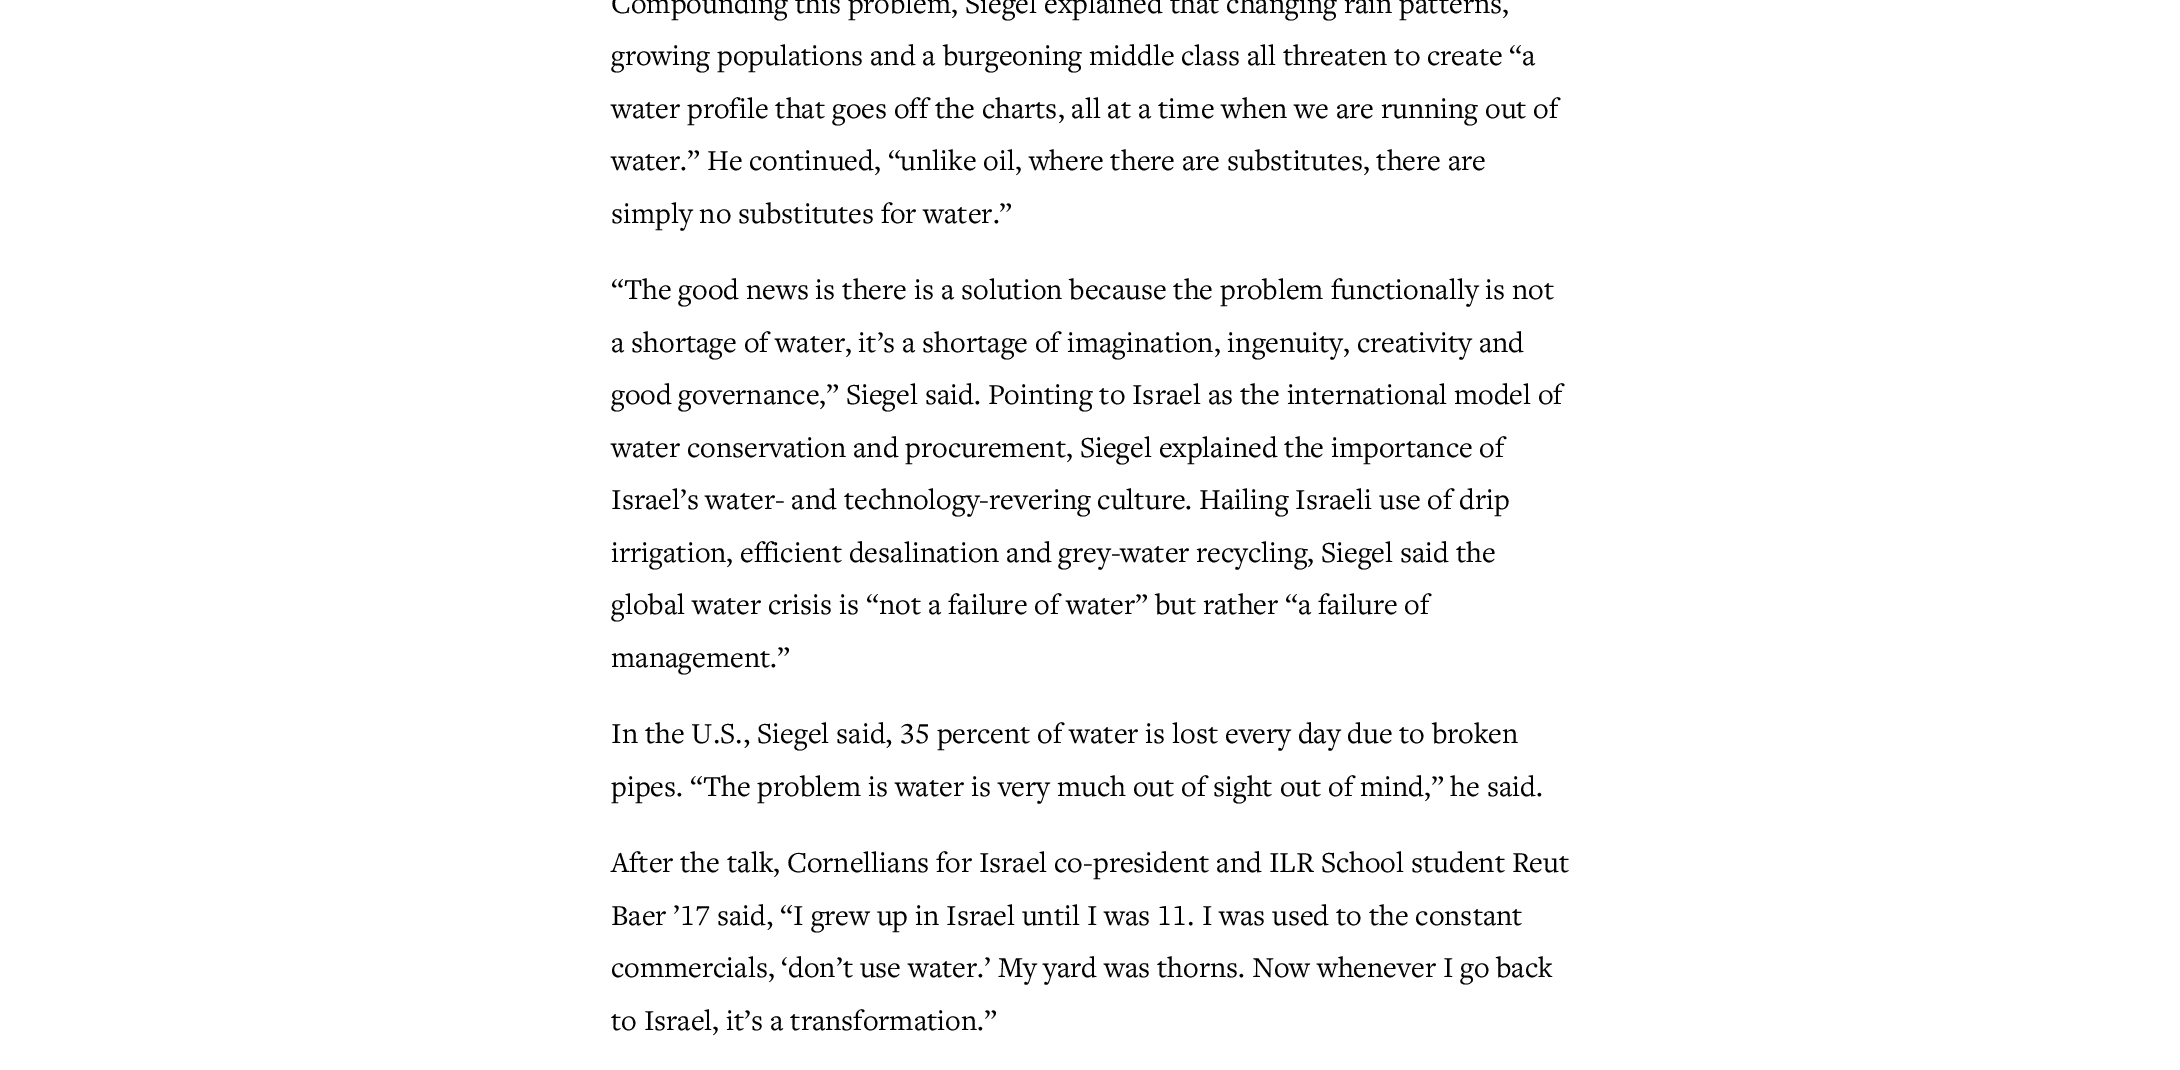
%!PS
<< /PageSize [2180 1070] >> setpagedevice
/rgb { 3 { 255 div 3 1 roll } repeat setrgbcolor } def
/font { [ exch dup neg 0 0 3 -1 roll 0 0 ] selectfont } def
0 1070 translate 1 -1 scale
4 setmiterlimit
255 255 255 rgb
0 0 2180 1070 rectfill
/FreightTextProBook-Regular 30 font
0 0 0 rgb
[
  [(Compounding this problem, Siegel explained that changing rain patterns,) 611 13]
  [(growing populations and a burgeoning middle class all threaten to create “a) 611 65]
  [(water profile that goes off the charts, all at a time when we are running out of) 611 118]
  [(water.” He continued, “unlike oil, where there are substitutes, there are) 611 170]
  [(simply no substitutes for water.”) 611 223]
  [(“The good news is there is a solution because the problem functionally is not) 611 299]
  [(a shortage of water, it’s a shortage of imagination, ingenuity, creativity and) 611 352]
  [(good governance,” Siegel said. Pointing to Israel as the international model of) 611 404]
  [(water conservation and procurement, Siegel explained the importance of) 611 457]
  [(Israel’s water- and technology-revering culture. Hailing Israeli use of drip) 611 509]
  [(irrigation, efficient desalination and grey-water recycling, Siegel said the) 611 562]
  [(global water crisis is “not a failure of water” but rather “a failure of) 611 614]
  [(management.”) 611 667]
] { aload pop moveto show } forall
/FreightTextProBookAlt-Regular 30 font
611 743 moveto (In the U.S., Siegel said, 35 percent of water is lost every day due to broken) show
/FreightTextProBook-Regular 30 font
611 796 moveto (pipes. “The problem is water is very much out of sight out of mind,” he said.) show
611 872 moveto (After the talk, Cornellians for Israel co-president and ILR School student Reut) show
/FreightTextProBookAlt-Regular 30 font
611 925 moveto (Baer ’17 said, “I grew up in Israel until I was 11. I was used to the constant) show
/FreightTextProBook-Regular 30 font
611 977 moveto (commercials, ‘don’t use water.’ My yard was thorns. Now whenever I go back) show
611 1030 moveto (to Israel, it’s a transformation.”) show
showpage
